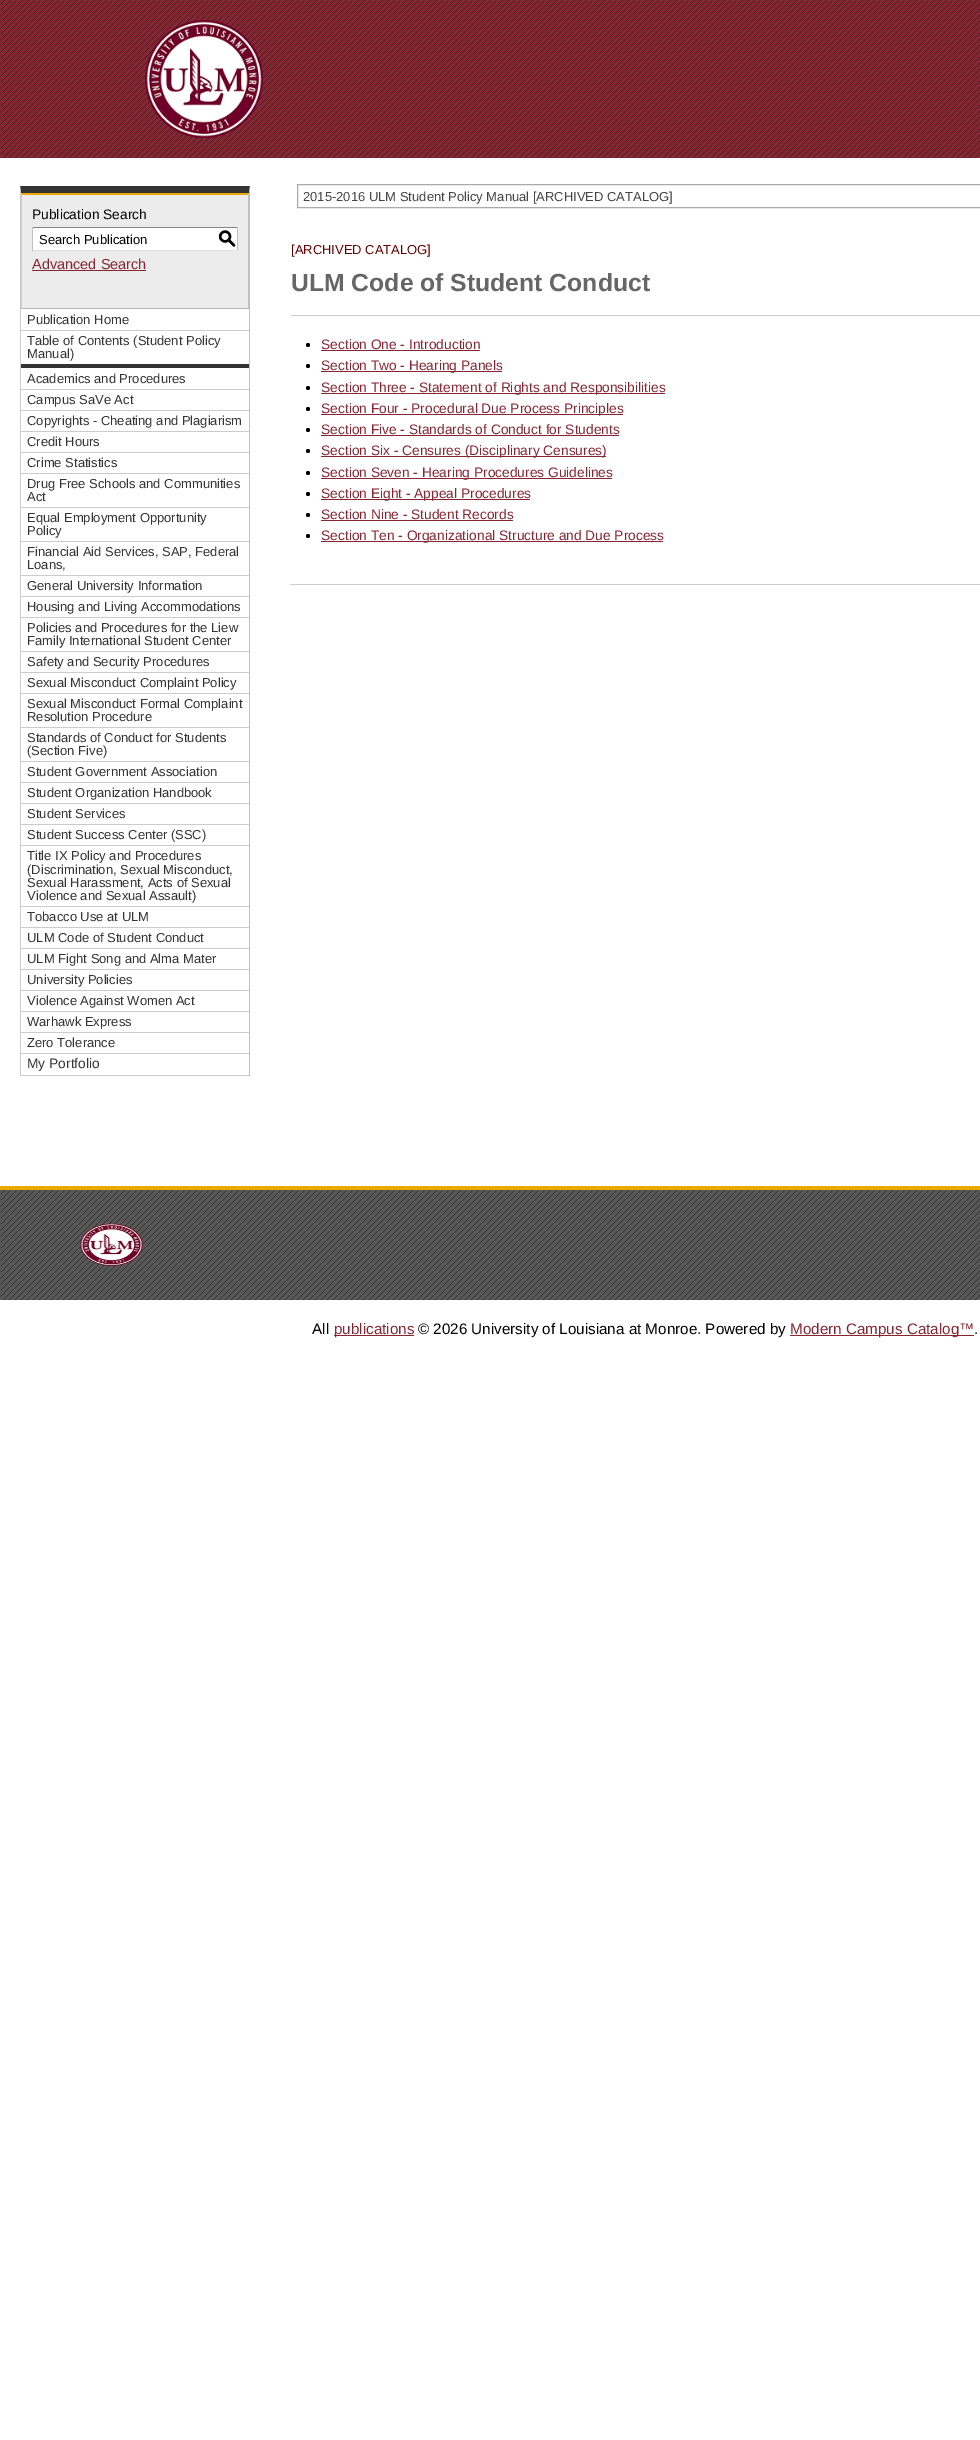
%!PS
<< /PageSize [980 2440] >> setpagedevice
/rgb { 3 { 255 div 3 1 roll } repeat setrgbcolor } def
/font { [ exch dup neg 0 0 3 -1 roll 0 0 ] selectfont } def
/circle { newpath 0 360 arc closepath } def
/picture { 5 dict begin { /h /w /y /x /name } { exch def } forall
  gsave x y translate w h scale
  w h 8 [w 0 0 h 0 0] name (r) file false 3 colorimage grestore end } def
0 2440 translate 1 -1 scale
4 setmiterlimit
255 255 255 rgb
0 0 980 2440 rectfill
134 38 51 rgb
0 0 980 158 rectfill
(img/1.rgb) 0 0 980 158 picture
(img/2.rgb) 145 20 118 118 picture
170 170 170 rgb
297.5 184.5 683 23 rectstroke
51 51 51 rgb
20 186 moveto 250 186 lineto 249 193 lineto 21 193 lineto closepath fill
192 192 192 rgb
250 186 moveto 250 1076 lineto 249 1075 lineto 249 193 lineto closepath fill
183 183 183 rgb
20 1075 230 1 rectfill
204 204 204 rgb
20 1076 moveto 20 186 lineto 21 193 lineto 21 1075 lineto closepath fill
236 236 236 rgb
22 195 226 113 rectfill
234 170 0 rgb
21 193 moveto 249 193 lineto 248 195 lineto 22 195 lineto closepath fill
192 192 192 rgb
249 193 moveto 249 309 lineto 248 308 lineto 248 195 lineto closepath fill
183 183 183 rgb
21 308 228 1 rectfill
204 204 204 rgb
21 309 moveto 21 193 lineto 22 195 lineto 22 308 lineto closepath fill
[
  [33 228 204 22 255 255 255]
  [32 227 206 1 132 132 132]
  [237 227 1 24 193 193 193]
  [32 250 206 1 225 225 225]
  [32 227 1 24 193 193 193]
  [32 270 114 1 134 38 51]
  [21 330 228 1 204 204 204]
  [21 364 228 4 51 51 51]
  [21 389 228 1 204 204 204]
  [21 410 228 1 204 204 204]
  [21 431 228 1 204 204 204]
  [21 452 228 1 204 204 204]
  [21 473 228 1 204 204 204]
  [21 507 228 1 204 204 204]
  [21 541 228 1 204 204 204]
  [21 575 228 1 204 204 204]
  [21 596 228 1 204 204 204]
  [21 617 228 1 204 204 204]
  [21 651 228 1 204 204 204]
  [21 672 228 1 204 204 204]
  [21 693 228 1 204 204 204]
  [21 727 228 1 204 204 204]
  [21 761 228 1 204 204 204]
  [21 782 228 1 204 204 204]
  [21 803 228 1 204 204 204]
  [21 824 228 1 204 204 204]
  [21 845 228 1 204 204 204]
  [21 906 228 1 204 204 204]
  [21 927 228 1 204 204 204]
  [21 948 228 1 204 204 204]
  [21 969 228 1 204 204 204]
  [21 990 228 1 204 204 204]
  [21 1011 228 1 204 204 204]
  [21 1032 228 1 204 204 204]
  [21 1053 228 1 204 204 204]
  [21 1075 228 1 204 204 204]
  [291 315 689 1 204 204 204]
] { aload pop rgb rectfill } forall
0 0 0 rgb
308 345 2 circle fill
134 38 51 rgb
321 350 159 1 rectfill
0 0 0 rgb
308 366 2 circle fill
134 38 51 rgb
321 371 181 1 rectfill
0 0 0 rgb
308 388 2 circle fill
134 38 51 rgb
321 393 344 1 rectfill
0 0 0 rgb
308 409 2 circle fill
134 38 51 rgb
321 414 302 1 rectfill
0 0 0 rgb
308 430 2 circle fill
134 38 51 rgb
321 435 298 1 rectfill
0 0 0 rgb
308 451 2 circle fill
134 38 51 rgb
321 456 285 1 rectfill
0 0 0 rgb
308 473 2 circle fill
134 38 51 rgb
321 478 291 1 rectfill
0 0 0 rgb
308 494 2 circle fill
134 38 51 rgb
321 499 209 1 rectfill
0 0 0 rgb
308 515 2 circle fill
134 38 51 rgb
321 520 192 1 rectfill
0 0 0 rgb
308 536 2 circle fill
[
  [321 541 342 1 134 38 51]
  [290 584 690 1 204 204 204]
  [0 1190 980 110 88 88 88]
] { aload pop rgb rectfill } forall
(img/3.rgb) 0 1190 980 110 picture
234 170 0 rgb
0 1186 980 4 rectfill
(img/4.rgb) 80 1223 63 43 picture
134 38 51 rgb
334 1335 80 1 rectfill
790 1335 184 1 rectfill
/LiberationSans-Regular 13 font
68 68 68 rgb
303 201 moveto (2015-2016 ULM Student Policy Manual [ARCHIVED CATALOG]) show
/LiberationSans-Regular 13.75 font
0 0 0 rgb
32 219 moveto (Publication Search) show
/LiberationSans-Regular 13 font
39 244 moveto (Search Publication) show
/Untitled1-Medium 18 font
218 244 moveto (S) show
/LiberationSans-Regular 14.5 font
134 38 51 rgb
32 269 moveto (Advanced Search) show
/LiberationSans-Regular 13 font
51 51 51 rgb
[
  [(Publication Home) 27 324]
  [(Table of Contents \(Student Policy) 27 345]
  [(Manual\)) 27 358]
  [(Academics and Procedures) 27 383]
  [(Campus SaVe Act) 27 404]
  [(Copyrights - Cheating and Plagiarism) 27 425]
  [(Credit Hours) 27 446]
  [(Crime Statistics) 27 467]
  [(Drug Free Schools and Communities) 27 488]
  [(Act) 27 501]
  [(Equal Employment Opportunity) 27 522]
  [(Policy) 27 535]
  [(Financial Aid Services, SAP, Federal) 27 556]
  [(Loans,) 27 569]
  [(General University Information) 27 590]
  [(Housing and Living Accommodations) 27 611]
  [(Policies and Procedures for the Liew) 27 632]
  [(Family International Student Center) 27 645]
  [(Safety and Security Procedures) 27 666]
  [(Sexual Misconduct Complaint Policy) 27 687]
  [(Sexual Misconduct Formal Complaint) 27 708]
  [(Resolution Procedure) 27 721]
  [(Standards of Conduct for Students) 27 742]
  [(\(Section Five\)) 27 755]
  [(Student Government Association) 27 776]
  [(Student Organization Handbook) 27 797]
  [(Student Services) 27 818]
  [(Student Success Center \(SSC\)) 27 839]
  [(Title IX Policy and Procedures) 27 860]
  [(\(Discrimination, Sexual Misconduct,) 27 874]
  [(Sexual Harassment, Acts of Sexual) 27 887]
  [(Violence and Sexual Assault\)) 27 900]
  [(Tobacco Use at ULM) 27 921]
  [(ULM Code of Student Conduct) 27 942]
  [(ULM Fight Song and Alma Mater) 27 963]
  [(University Policies) 27 984]
  [(Violence Against Women Act) 27 1005]
  [(Warhawk Express) 27 1026]
  [(Zero Tolerance) 27 1047]
] { aload pop moveto show } forall
/LiberationSans-Regular 13.75 font
27 1068 moveto (My Portfolio) show
/LiberationSans-Regular 13 font
102 0 0 rgb
291 254 moveto ([ARCHIVED CATALOG]) show
/LiberationSans-Bold 24.75 font
102 102 102 rgb
291 291 moveto (ULM Code of Student Conduct) show
/LiberationSans-Regular 13.75 font
134 38 51 rgb
[
  [(Section One - Introduction) 321 349]
  [(Section Two - Hearing Panels) 321 370]
  [(Section Three - Statement of Rights and Responsibilities) 321 392]
  [(Section Four - Procedural Due Process Principles) 321 413]
  [(Section Five - Standards of Conduct for Students) 321 434]
  [(Section Six - Censures \(Disciplinary Censures\)) 321 455]
  [(Section Seven - Hearing Procedures Guidelines) 321 477]
  [(Section Eight - Appeal Procedures) 321 498]
  [(Section Nine - Student Records) 321 519]
  [(Section Ten - Organizational Structure and Due Process) 321 540]
] { aload pop moveto show } forall
/LiberationSans-Regular 15.2 font
0 0 0 rgb
312 1334 moveto (All) show
134 38 51 rgb
334 1334 moveto (publications) show
0 0 0 rgb
418 1334 moveto (© 2026 University of Louisiana at Monroe. Powered by) show
134 38 51 rgb
790 1334 moveto (Modern Campus Catalog™) show
0 0 0 rgb
974 1334 moveto (.) show
showpage
